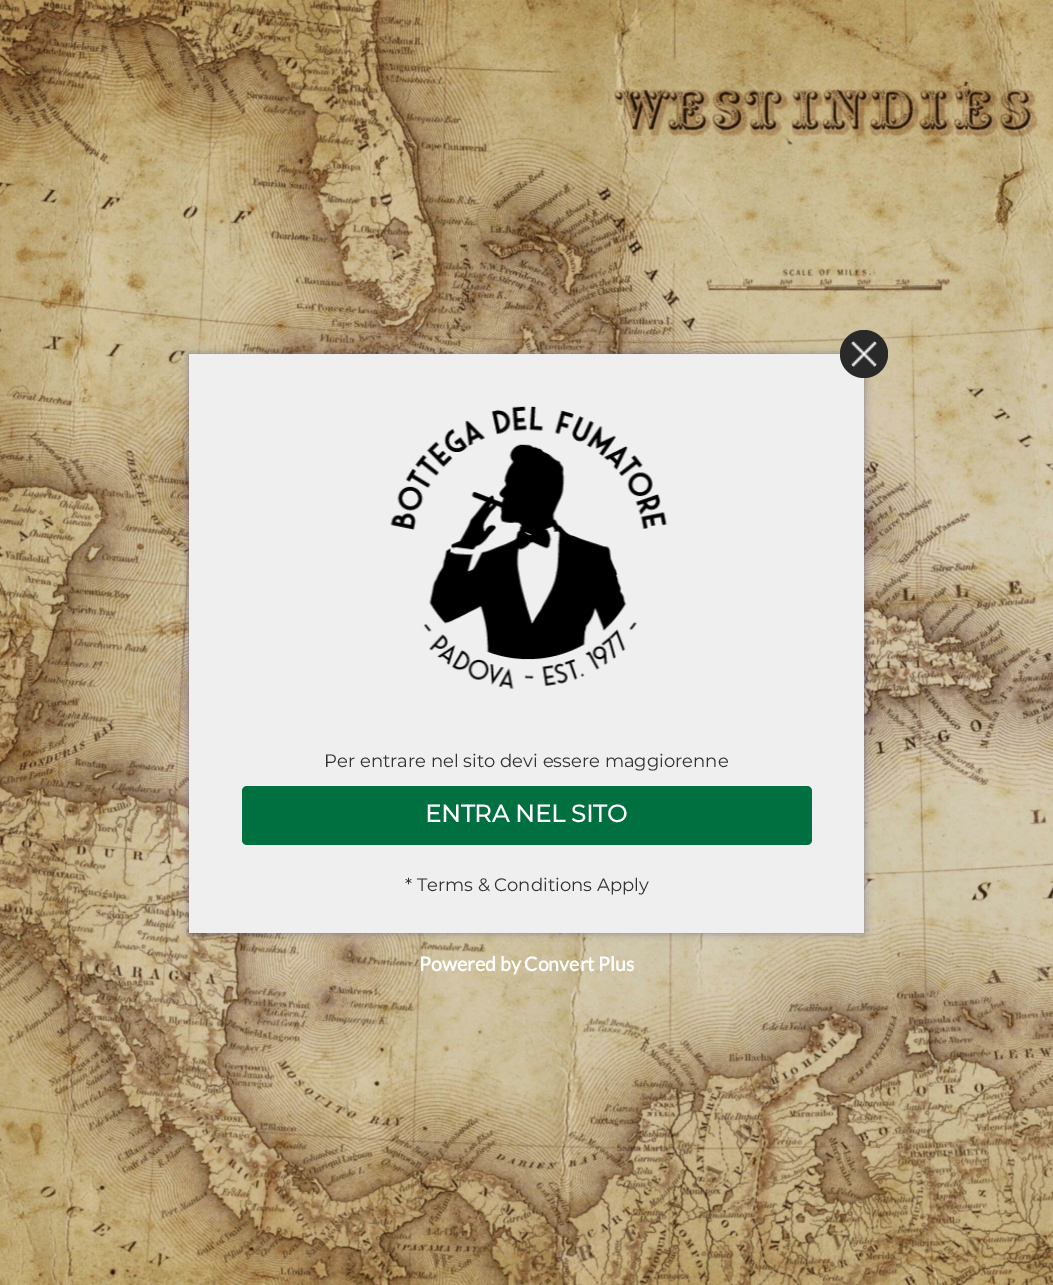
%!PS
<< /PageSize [1053 1285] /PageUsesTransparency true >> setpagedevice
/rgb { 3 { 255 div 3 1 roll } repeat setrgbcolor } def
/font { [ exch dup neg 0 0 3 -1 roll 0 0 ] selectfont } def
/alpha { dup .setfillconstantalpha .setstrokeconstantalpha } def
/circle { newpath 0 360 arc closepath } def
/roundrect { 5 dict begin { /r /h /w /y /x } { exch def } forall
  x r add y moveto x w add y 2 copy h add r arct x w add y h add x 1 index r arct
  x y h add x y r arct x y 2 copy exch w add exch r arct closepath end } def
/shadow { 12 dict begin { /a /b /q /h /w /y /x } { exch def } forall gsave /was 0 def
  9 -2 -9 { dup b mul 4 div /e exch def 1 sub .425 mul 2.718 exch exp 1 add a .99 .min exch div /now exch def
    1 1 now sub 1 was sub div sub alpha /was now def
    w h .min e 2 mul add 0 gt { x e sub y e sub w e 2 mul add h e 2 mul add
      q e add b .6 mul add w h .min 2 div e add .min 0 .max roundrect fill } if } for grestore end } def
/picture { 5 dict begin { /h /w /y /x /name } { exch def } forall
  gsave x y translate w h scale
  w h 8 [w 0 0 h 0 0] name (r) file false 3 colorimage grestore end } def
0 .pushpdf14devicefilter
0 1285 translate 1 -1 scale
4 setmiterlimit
255 255 255 rgb
0 0 1053 1285 rectfill
(img/1.rgb) 0 0 1053 1285 picture
86 86 131 rgb
189 354 675 579 0 4 0.6 shadow
239 239 239 rgb
189 354 675 579 rectfill
41 41 41 rgb
864 354 24 circle fill
(img/2.rgb) 851 341 26 26 picture
(img/3.rgb) 390 406 278 283 picture
0 112 65 rgb
242 786 570 59 5 roundrect fill
/Montserrat-Thin 18 font
51 51 51 rgb
324 767 moveto (Per entrare nel sito devi essere maggiorenne) show
/Montserrat-Bold 24 font
255 255 255 rgb
425 822 moveto (ENTRA NEL SITO) show
/Montserrat-Thin 18 font
51 51 51 rgb
405 891 moveto (* Terms & Conditions Apply) show
/Lato-Bold 19.5 font
255 255 255 rgb
419 971 moveto (Powered by Convert Plus) show
.poppdf14devicefilter showpage
